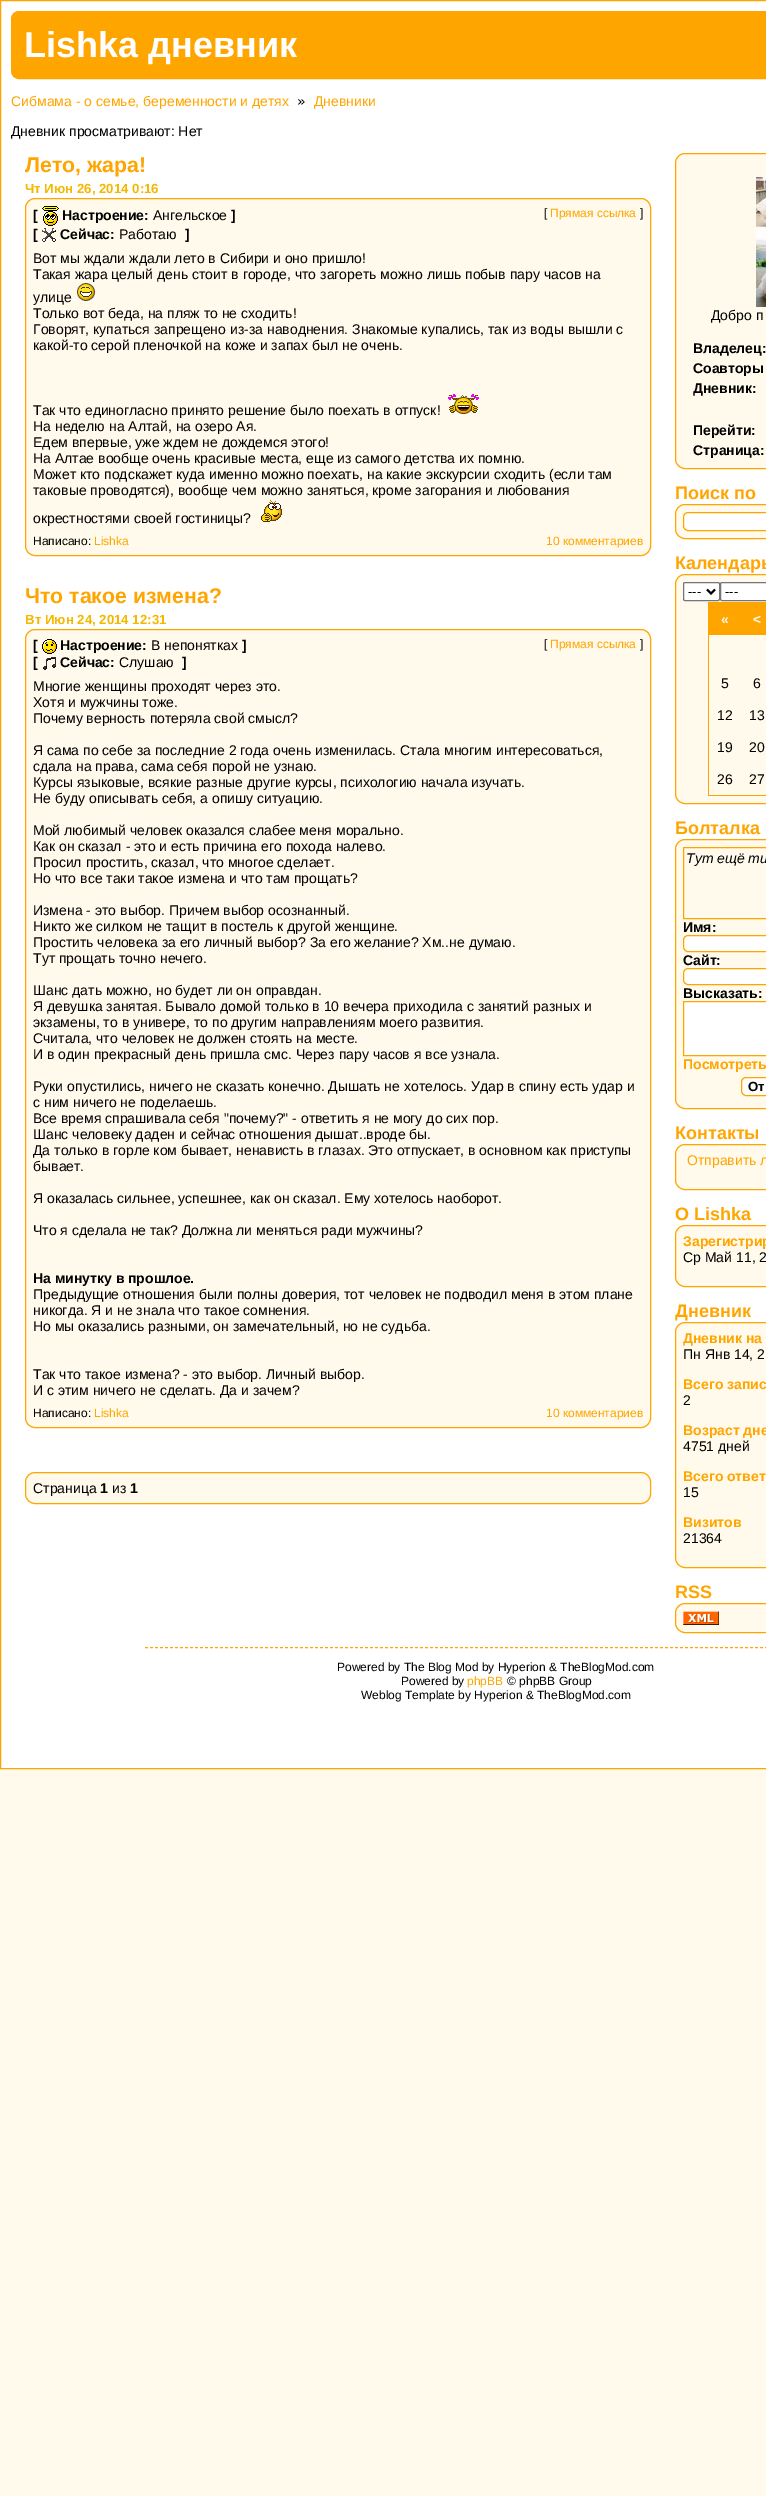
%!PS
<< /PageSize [766 2496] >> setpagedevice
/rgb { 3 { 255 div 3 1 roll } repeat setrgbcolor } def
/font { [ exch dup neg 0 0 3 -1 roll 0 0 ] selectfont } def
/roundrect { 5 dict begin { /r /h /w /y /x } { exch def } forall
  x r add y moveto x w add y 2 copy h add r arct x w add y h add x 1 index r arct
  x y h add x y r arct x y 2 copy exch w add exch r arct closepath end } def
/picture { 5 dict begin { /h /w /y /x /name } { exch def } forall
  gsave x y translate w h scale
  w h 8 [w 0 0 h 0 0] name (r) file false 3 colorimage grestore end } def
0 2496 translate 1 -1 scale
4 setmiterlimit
255 250 235 rgb
0 0 766 2496 rectfill
255 255 255 rgb
0.5 0.5 moveto 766.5 0.5 lineto 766.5 1768.5 lineto 0.5 1768.5 lineto closepath gsave fill grestore
255 165 0 rgb
stroke
11.5 11.5 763 67 7.5 roundrect gsave fill grestore
stroke
255 250 235 rgb
25.5 198.5 625 357 9.5 roundrect gsave fill grestore
255 165 0 rgb
stroke
(img/1.rgb) 42 206 17 20 picture
(img/2.rgb) 42 228 14 14 picture
(img/3.rgb) 77 283 18 18 picture
(img/4.rgb) 448 394 31 20 picture
(img/5.rgb) 261 500 21 22 picture
255 250 235 rgb
25.5 629.5 625 798 9.5 roundrect gsave fill grestore
255 165 0 rgb
stroke
(img/6.rgb) 42 639 15 15 picture
(img/7.rgb) 43 657 13 13 picture
255 250 235 rgb
25.5 1472.5 625 31 9.5 roundrect gsave fill grestore
255 165 0 rgb
stroke
255 250 235 rgb
675.5 153.5 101 315 9.5 roundrect gsave fill grestore
255 165 0 rgb
stroke
(img/8.rgb) 756 177 10 130 picture
255 250 235 rgb
675.5 504.5 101 34 9.5 roundrect gsave fill grestore
255 165 0 rgb
stroke
255 255 255 rgb
683.5 512.5 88 18 4.5 roundrect gsave fill grestore
255 165 0 rgb
stroke
255 250 235 rgb
675.5 574.5 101 229 9.5 roundrect gsave fill grestore
255 165 0 rgb
stroke
255 255 255 rgb
683.5 582.5 36 18 1.5 roundrect gsave fill grestore
118 118 118 rgb
stroke
0 0 0 rgb
2 setlinewidth
707 589.5 moveto 711 593.5 lineto 715 589.5 lineto stroke
255 255 255 rgb
720.5 582.5 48 18 1.5 roundrect gsave fill grestore
118 118 118 rgb
1 setlinewidth
stroke
[
  [708 602 58 1 255 165 0]
  [708 795 58 1 255 165 0]
  [708 602 1 194 255 165 0]
  [709 603 57 32 255 165 0]
] { aload pop rgb rectfill } forall
255 250 235 rgb
675.5 839.5 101 269 9.5 roundrect gsave fill grestore
255 165 0 rgb
stroke
683.5 847.5 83 71 rectstroke
255 255 255 rgb
683.5 935.5 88 16 4.5 roundrect gsave fill grestore
255 165 0 rgb
stroke
255 255 255 rgb
683.5 968.5 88 16 4.5 roundrect gsave fill grestore
255 165 0 rgb
stroke
255 255 255 rgb
683.5 1001.5 moveto 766.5 1001.5 lineto 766.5 1055.5 lineto 683.5 1055.5 lineto closepath gsave fill grestore
255 165 0 rgb
stroke
255 255 255 rgb
741.5 1077.5 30 18 4.5 roundrect gsave fill grestore
255 165 0 rgb
stroke
255 250 235 rgb
675.5 1144.5 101 45 9.5 roundrect gsave fill grestore
255 165 0 rgb
stroke
255 250 235 rgb
675.5 1225.5 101 61 9.5 roundrect gsave fill grestore
255 165 0 rgb
stroke
255 250 235 rgb
675.5 1322.5 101 245 9.5 roundrect gsave fill grestore
255 165 0 rgb
stroke
255 250 235 rgb
675.5 1603.5 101 29 9.5 roundrect gsave fill grestore
255 165 0 rgb
stroke
(img/9.rgb) 683 1611 36 14 picture
[3 2] 0 setdash
145 1647.5 moveto 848 1647.5 lineto stroke
/LiberationSans-Bold 36 font
255 255 255 rgb
24 57 moveto (Lishka дневник) show
/LiberationSans-Regular 14 font
255 165 0 rgb
11 106 moveto (Сибмама - о семье, беременности и детях) show
/DejaVuSansMono-Regular 14 font
0 0 0 rgb
297 106 moveto (») show
/LiberationSans-Regular 14 font
255 165 0 rgb
314 106 moveto (Дневники) show
0 0 0 rgb
11 136 moveto (Дневник просматривают: Нет) show
/LiberationSans-Bold 21.25 font
255 165 0 rgb
25 172 moveto (Лето, жара!) show
/LiberationSans-Bold 13.25 font
245 184 0 rgb
25 193 moveto (Чт Июн 26, 2014 0:16) show
/LiberationSans-Bold 14 font
0 0 0 rgb
33 220 moveto ([) show
62 220 moveto (Настроение:) show
/LiberationSans-Regular 14 font
153 220 moveto (Ангельское) show
/LiberationSans-Bold 14 font
231 220 moveto (]) show
/LiberationSans-Regular 12 font
544 217 moveto ([) show
255 165 0 rgb
550 217 moveto (Прямая ссылка) show
0 0 0 rgb
640 217 moveto (]) show
/LiberationSans-Bold 14 font
33 239 moveto ([) show
60 239 moveto (Сейчас:) show
/LiberationSans-Regular 14 font
119 239 moveto (Работаю) show
/LiberationSans-Bold 14 font
185 239 moveto (]) show
/LiberationSans-Regular 14 font
[
  [(Вот мы ждали ждали лето в Сибири и оно пришло!) 33 263]
  [(Такая жара целый день стоит в городе, что загореть можно лишь побыв пару часов на) 33 279]
  [(улице) 33 302]
  [(Только вот беда, на пляж то не сходить!) 33 318]
  [(Говорят, купаться запрещено из-за наводнения. Знакомые купались, так из воды вышли с) 33 334]
  [(какой-то серой пленочкой на коже и запах был не очень.) 33 350]
  [(Так что единогласно принято решение было поехать в отпуск!) 33 415]
  [(На неделю на Алтай, на озеро Ая.) 33 431]
  [(Едем впервые, уже ждем не дождемся этого!) 33 447]
  [(На Алтае вообще очень красивые места, еще из самого детства их помню.) 33 463]
  [(Может кто подскажет куда именно можно поехать, на какие экскурсии сходить \(если там) 33 479]
  [(таковые проводятся\), вообще чем можно заняться, кроме загорания и любования) 33 495]
  [(окрестностями своей гостиницы?) 33 523]
] { aload pop moveto show } forall
/LiberationSans-Regular 12 font
33 545 moveto (Написано:) show
255 165 0 rgb
94 545 moveto (Lishka) show
546 545 moveto (10 комментариев) show
/LiberationSans-Bold 21.25 font
25 603 moveto (Что такое измена?) show
/LiberationSans-Bold 13.25 font
245 184 0 rgb
25 624 moveto (Вт Июн 24, 2014 12:31) show
/LiberationSans-Bold 14 font
0 0 0 rgb
33 650 moveto ([) show
60 650 moveto (Настроение:) show
/LiberationSans-Regular 14 font
151 650 moveto (В непонятках) show
/LiberationSans-Bold 14 font
242 650 moveto (]) show
/LiberationSans-Regular 12 font
544 648 moveto ([) show
255 165 0 rgb
550 648 moveto (Прямая ссылка) show
0 0 0 rgb
640 648 moveto (]) show
/LiberationSans-Bold 14 font
33 667 moveto ([) show
60 667 moveto (Сейчас:) show
/LiberationSans-Regular 14 font
119 667 moveto (Слушаю) show
/LiberationSans-Bold 14 font
182 667 moveto (]) show
/LiberationSans-Regular 14 font
[
  [(Многие женщины проходят через это.) 33 691]
  [(Хотя и мужчины тоже.) 33 707]
  [(Почему верность потеряла свой смысл?) 33 723]
  [(Я сама по себе за последние 2 года очень изменилась. Стала многим интересоваться,) 33 755]
  [(сдала на права, сама себя порой не узнаю.) 33 771]
  [(Курсы языковые, всякие разные другие курсы, психологию начала изучать.) 33 787]
  [(Не буду описывать себя, а опишу ситуацию.) 33 803]
  [(Мой любимый человек оказался слабее меня морально.) 33 835]
  [(Как он сказал - это и есть причина его похода налево.) 33 851]
  [(Просил простить, сказал, что многое сделает.) 33 867]
  [(Но что все таки такое измена и что там прощать?) 33 883]
  [(Измена - это выбор. Причем выбор осознанный.) 33 915]
  [(Никто же силком не тащит в постель к другой женщине.) 33 931]
  [(Простить человека за его личный выбор? За его желание? Хм..не думаю.) 33 947]
  [(Тут прощать точно нечего.) 33 963]
  [(Шанс дать можно, но будет ли он оправдан.) 33 995]
  [(Я девушка занятая. Бывало домой только в 10 вечера приходила с занятий разных и) 33 1011]
  [(экзамены, то в универе, то по другим направлениям моего развития.) 33 1027]
  [(Считала, что человек не должен стоять на месте.) 33 1043]
  [(И в один прекрасный день пришла смс. Через пару часов я все узнала.) 33 1059]
  [(Руки опустились, ничего не сказать конечно. Дышать не хотелось. Удар в спину есть удар и) 33 1091]
  [(с ним ничего не поделаешь.) 33 1107]
  [(Все время спрашивала себя "почему?" - ответить я не могу до сих пор.) 33 1123]
  [(Шанс человеку даден и сейчас отношения дышат..вроде бы.) 33 1139]
  [(Да только в горле ком бывает, ненависть в глазах. Это отпускает, в основном как приступы) 33 1155]
  [(бывает.) 33 1171]
  [(Я оказалась сильнее, успешнее, как он сказал. Ему хотелось наоборот.) 33 1203]
  [(Что я сделала не так? Должна ли меняться ради мужчины?) 33 1235]
] { aload pop moveto show } forall
/LiberationSans-Bold 14 font
33 1283 moveto (На минутку в прошлое.) show
/LiberationSans-Regular 14 font
[
  [(Предыдущие отношения были полны доверия, тот человек не подводил меня в этом плане) 33 1299]
  [(никогда. Я и не знала что такое сомнения.) 33 1315]
  [(Но мы оказались разными, он замечательный, но не судьба.) 33 1331]
  [(Так что такое измена? - это выбор. Личный выбор.) 33 1379]
  [(И с этим ничего не сделать. Да и зачем?) 33 1395]
] { aload pop moveto show } forall
/LiberationSans-Regular 12 font
33 1417 moveto (Написано:) show
255 165 0 rgb
94 1417 moveto (Lishka) show
546 1417 moveto (10 комментариев) show
/LiberationSans-Regular 14 font
0 0 0 rgb
33 1493 moveto (Страница) show
/LiberationSans-Bold 14 font
100 1493 moveto (1) show
/LiberationSans-Regular 14 font
112 1493 moveto (из) show
/LiberationSans-Bold 14 font
130 1493 moveto (1) show
/LiberationSans-Regular 14 font
711 320 moveto (Добро п) show
/LiberationSans-Bold 14 font
[
  [(Владелец:) 693 353]
  [(Соавторы) 693 373]
  [(Дневник:) 693 393]
  [(Перейти:) 693 435]
  [(Страница:) 693 455]
] { aload pop moveto show } forall
/LiberationSans-Bold 18 font
255 165 0 rgb
675 499 moveto (Поиск по) show
675 569 moveto (Календарь) show
/LiberationSans-Regular 13.25 font
0 0 0 rgb
688 596 moveto (---) show
725 596 moveto (---) show
/LiberationSans-Bold 14 font
255 250 235 rgb
721 624 moveto («) show
753 624 moveto (<) show
/LiberationSans-Regular 14 font
0 0 0 rgb
[
  [(5) 721 688]
  [(6) 753 688]
  [(12) 717 720]
  [(13) 749 720]
  [(19) 717 752]
  [(20) 749 752]
  [(26) 717 784]
  [(27) 749 784]
] { aload pop moveto show } forall
/LiberationSans-Bold 18 font
255 165 0 rgb
675 834 moveto (Болталка) show
/LiberationSans-Italic 14 font
0 0 0 rgb
686 863 moveto (Тут ещё ти) show
/LiberationSans-Bold 14 font
[
  [(Имя:) 683 932]
  [(Сайт:) 683 965]
  [(Высказать:) 683 998]
] { aload pop moveto show } forall
255 165 0 rgb
683 1069 moveto (Посмотреть) show
/LiberationSans-Bold 13.25 font
0 0 0 rgb
748 1091 moveto (От) show
/LiberationSans-Bold 18 font
255 165 0 rgb
675 1139 moveto (Контакты) show
/LiberationSans-Regular 14 font
687 1165 moveto (Отправить л) show
/LiberationSans-Bold 18 font
675 1220 moveto (О Lishka) show
/LiberationSans-Bold 14 font
683 1246 moveto (Зарегистрир) show
/LiberationSans-Regular 14 font
0 0 0 rgb
683 1262 moveto (Ср Май 11, 2) show
/LiberationSans-Bold 18 font
255 165 0 rgb
675 1317 moveto (Дневник) show
/LiberationSans-Bold 14 font
683 1343 moveto (Дневник на) show
/LiberationSans-Regular 14 font
0 0 0 rgb
683 1359 moveto (Пн Янв 14, 2) show
/LiberationSans-Bold 14 font
255 165 0 rgb
683 1389 moveto (Всего запис) show
/LiberationSans-Regular 14 font
0 0 0 rgb
683 1405 moveto (2) show
/LiberationSans-Bold 14 font
255 165 0 rgb
683 1435 moveto (Возраст дне) show
/LiberationSans-Regular 14 font
0 0 0 rgb
683 1451 moveto (4751 дней) show
/LiberationSans-Bold 14 font
255 165 0 rgb
683 1481 moveto (Всего ответ) show
/LiberationSans-Regular 14 font
0 0 0 rgb
683 1497 moveto (15) show
/LiberationSans-Bold 14 font
255 165 0 rgb
683 1527 moveto (Визитов) show
/LiberationSans-Regular 14 font
0 0 0 rgb
683 1543 moveto (21364) show
/LiberationSans-Bold 18 font
255 165 0 rgb
675 1598 moveto (RSS) show
/LiberationSans-Regular 12 font
0 0 0 rgb
337 1671 moveto (Powered by The Blog Mod by Hyperion & TheBlogMod.com) show
401 1685 moveto (Powered by) show
255 165 0 rgb
467 1685 moveto (phpBB) show
0 0 0 rgb
507 1685 moveto (© phpBB Group) show
361 1699 moveto (Weblog Template by Hyperion & TheBlogMod.com) show
showpage
